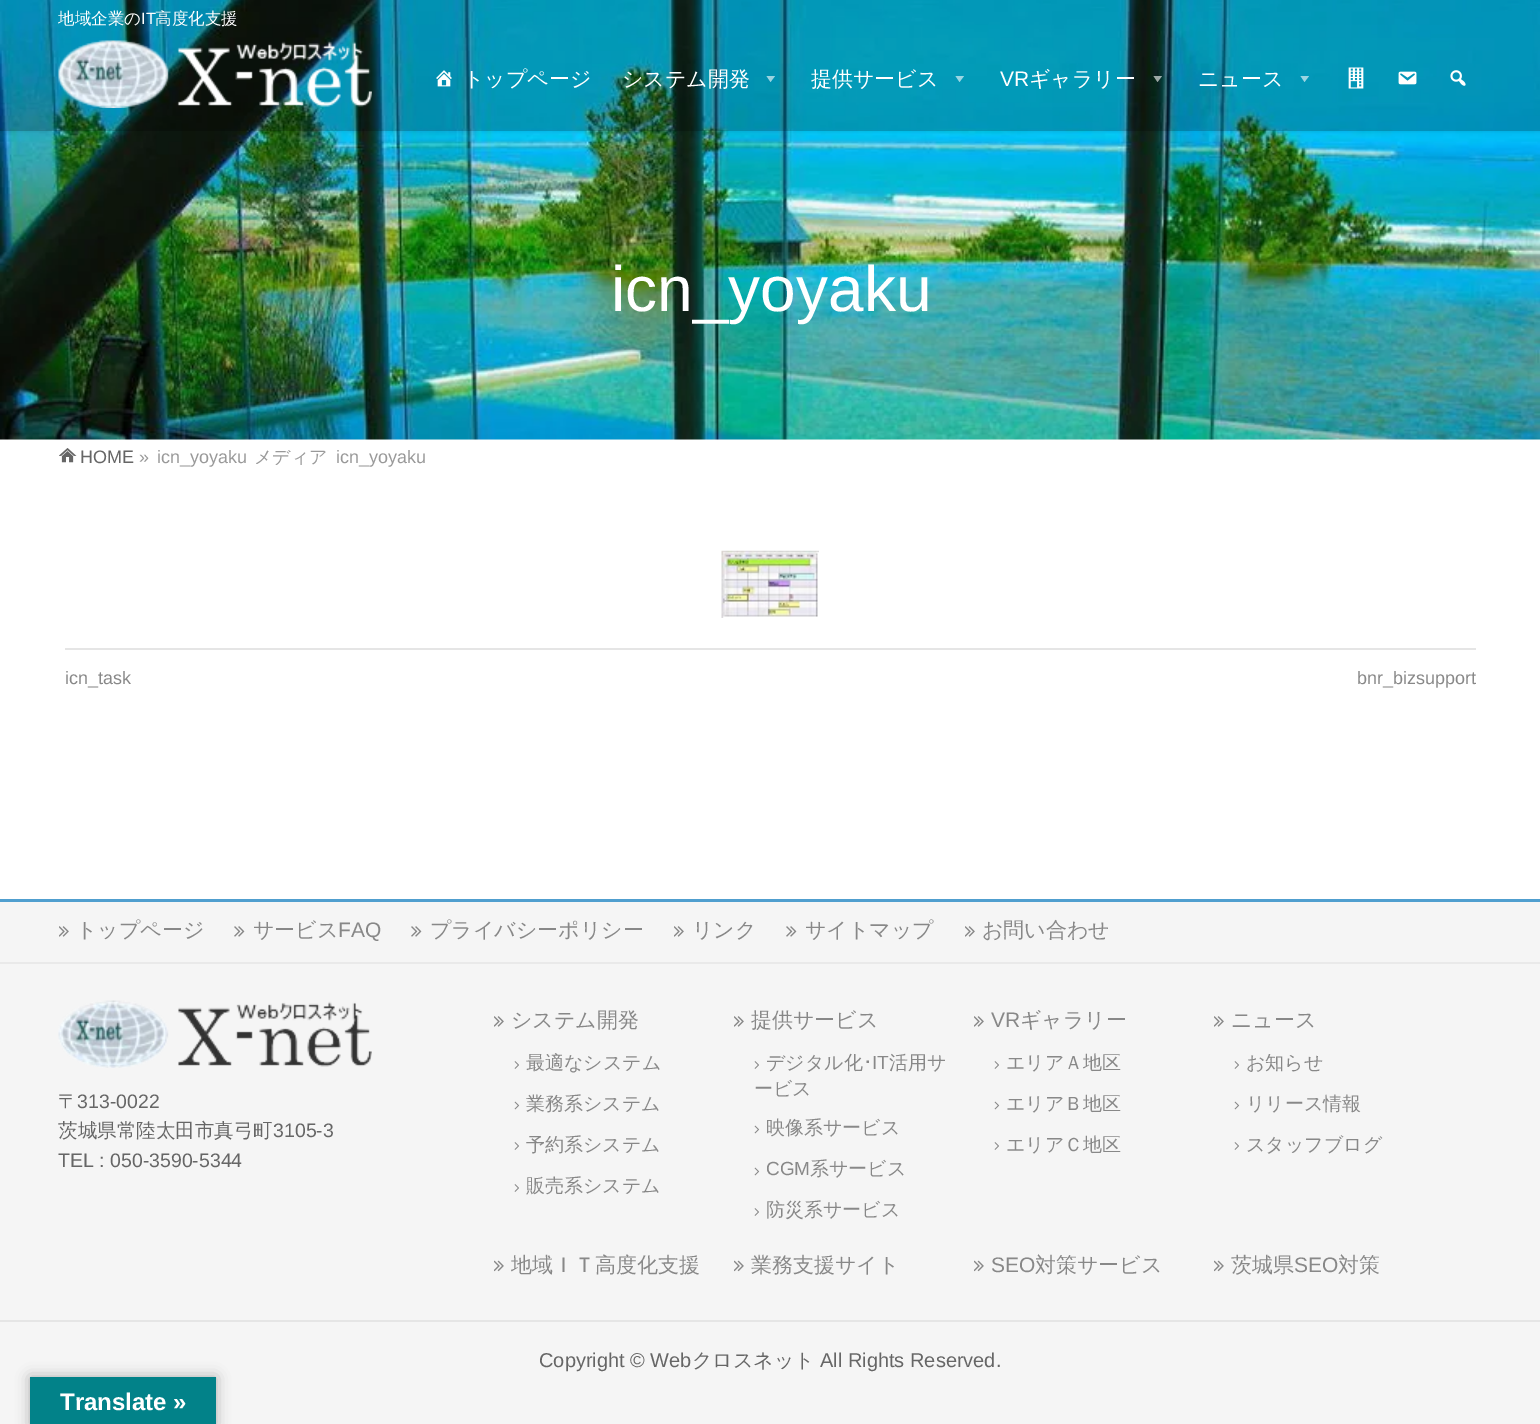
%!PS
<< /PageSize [1540 1424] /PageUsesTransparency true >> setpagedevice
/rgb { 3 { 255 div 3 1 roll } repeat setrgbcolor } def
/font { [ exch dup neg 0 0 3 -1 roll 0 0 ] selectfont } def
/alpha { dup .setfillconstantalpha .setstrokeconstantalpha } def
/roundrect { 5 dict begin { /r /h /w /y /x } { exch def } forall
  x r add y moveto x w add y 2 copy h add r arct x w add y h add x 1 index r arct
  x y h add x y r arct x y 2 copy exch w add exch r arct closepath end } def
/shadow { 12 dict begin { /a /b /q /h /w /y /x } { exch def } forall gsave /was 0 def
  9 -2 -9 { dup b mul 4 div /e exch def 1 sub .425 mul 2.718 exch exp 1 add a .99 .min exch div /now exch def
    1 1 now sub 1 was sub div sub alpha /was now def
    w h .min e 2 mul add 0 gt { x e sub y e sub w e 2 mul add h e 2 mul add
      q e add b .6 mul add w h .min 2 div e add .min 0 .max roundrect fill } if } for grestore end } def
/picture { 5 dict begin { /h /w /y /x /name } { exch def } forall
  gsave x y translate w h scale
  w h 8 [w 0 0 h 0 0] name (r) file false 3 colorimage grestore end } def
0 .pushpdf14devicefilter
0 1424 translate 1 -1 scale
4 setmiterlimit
255 255 255 rgb
0 0 1540 1424 rectfill
249 249 249 rgb
0 439 1540 1 rectfill
(img/6.rgb) 0 0 1540 440 picture
gsave
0 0 moveto 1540 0 lineto 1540 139 lineto 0 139 lineto closepath 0 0 moveto 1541 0 lineto 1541 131 lineto 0 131 lineto closepath eoclip newpath
0 0 0 rgb
0 2 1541 130 0 2 0.1 shadow
grestore
0.25 alpha
0 0 0 rgb
0 0 1540 131 rectfill
1 alpha
(img/1.rgb) 58 40 314 68 picture
(img/2.rgb) 436 70 16 17 picture
153 211 224 rgb
775 76 moveto 770.5 82 lineto 766.5 76 lineto closepath fill
154 214 227 rgb
964 76 moveto 959.5 82 lineto 955.5 76 lineto closepath fill
0.6 alpha
255 255 255 rgb
1162 76 moveto 1157.5 82 lineto 1153.5 76 lineto closepath fill
1 alpha
154 213 226 rgb
1309 76 moveto 1304.5 82 lineto 1300.5 76 lineto closepath fill
(img/3.rgb) 1348 67 16 22 picture
(img/4.rgb) 1398 71 19 14 picture
(img/5.rgb) 1450 70 16 16 picture
(img/7.rgb) 59 448 18 15 picture
(img/8.rgb) 721 550 98 68 picture
[
  [65 648 1411 2 229 229 229]
  [0 902 1540 60 245 245 245]
  [0 899 1540 3 80 159 207]
  [0 962 1540 2 233 233 233]
] { aload pop rgb rectfill } forall
(img/9.rgb) 59 926 10 11 picture
(img/10.rgb) 234 926 11 11 picture
(img/10.rgb) 411 926 11 11 picture
(img/9.rgb) 674 926 10 11 picture
(img/10.rgb) 786 926 11 11 picture
(img/9.rgb) 965 926 10 11 picture
245 245 245 rgb
0 964 1540 356 rectfill
(img/11.rgb) 58 1000 314 68 picture
(img/9.rgb) 494 1016 10 11 picture
(img/12.rgb) 514 1061 5 8 picture
(img/13.rgb) 514 1101 6 9 picture
(img/12.rgb) 514 1142 5 8 picture
(img/12.rgb) 514 1184 5 8 picture
(img/9.rgb) 734 1016 10 11 picture
(img/12.rgb) 754 1061 5 8 picture
(img/13.rgb) 754 1125 6 9 picture
(img/13.rgb) 754 1167 6 9 picture
(img/12.rgb) 754 1208 5 8 picture
(img/9.rgb) 974 1016 10 11 picture
(img/12.rgb) 994 1061 5 8 picture
(img/13.rgb) 994 1101 6 9 picture
(img/12.rgb) 994 1142 5 8 picture
(img/9.rgb) 1214 1016 10 11 picture
(img/12.rgb) 1234 1061 5 8 picture
(img/13.rgb) 1234 1101 6 9 picture
(img/12.rgb) 1234 1142 5 8 picture
(img/14.rgb) 494 1260 10 12 picture
(img/14.rgb) 734 1260 10 12 picture
(img/14.rgb) 974 1260 10 12 picture
(img/14.rgb) 1214 1260 10 12 picture
0 1322 1540 102 rectfill
229 229 229 rgb
0 1320 1540 2 rectfill
0 0 0 rgb
30 1377 186 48 0 7 0.3 shadow
2 130 137 rgb
30 1377 186 47 rectfill
/WenQuanYiZenHei-Medium 16.5 font
255 255 255 rgb
58 24 moveto (地域企業の) show
/LiberationSans-Regular 16.5 font
141 24 moveto (IT) show
/WenQuanYiZenHei-Medium 16.5 font
155 24 moveto (高度化支援) show
/WenQuanYiZenHei-Medium 21 font
[
  [(トップページ) 463 86]
  [(システム開発) 622 86]
  [(提供サービス) 811 86]
] { aload pop moveto show } forall
/LiberationSans-Regular 21 font
1000 86 moveto (VR) show
/WenQuanYiZenHei-Medium 21 font
1029 86 moveto (ギャラリー) show
1198 86 moveto (ニュース) show
/LiberationSans-Regular 64 font
611 311 moveto (icn_yoyaku) show
/LiberationSans-Regular 18 font
102 102 102 rgb
80 463 moveto (HOME) show
153 153 153 rgb
139 463 moveto (») show
157 463 moveto (icn_yoyaku) show
/WenQuanYiZenHei-Medium 18 font
254 463 moveto (メディア) show
/LiberationSans-Regular 18 font
336 463 moveto (icn_yoyaku) show
136 136 136 rgb
65 684 moveto (icn_task) show
1357 684 moveto (bnr_bizsupport) show
/WenQuanYiZenHei-Medium 21 font
76 937 moveto (トップページ) show
253 937 moveto (サービス) show
/LiberationSans-Regular 21 font
338 937 moveto (FAQ) show
/WenQuanYiZenHei-Medium 21 font
[
  [(プライバシーポリシー) 430 937]
  [(リンク) 692 937]
  [(サイトマップ) 805 937]
  [(お問い合わせ) 982 937]
] { aload pop moveto show } forall
/WenQuanYiZenHei-Medium 19.5 font
102 102 102 rgb
58 1108 moveto (〒) show
/LiberationSans-Regular 19.5 font
77 1108 moveto (313-0022) show
/WenQuanYiZenHei-Medium 19.5 font
58 1137 moveto (茨城県常陸太田市真弓町) show
/LiberationSans-Regular 19.5 font
273 1137 moveto (3105-3) show
58 1167 moveto (TEL : 050-3590-5344) show
/WenQuanYiZenHei-Medium 21 font
136 136 136 rgb
511 1027 moveto (システム開発) show
/WenQuanYiZenHei-Medium 19 font
[
  [(最適なシステム) 526 1069]
  [(業務系システム) 526 1110]
  [(予約系システム) 526 1151]
  [(販売系システム) 526 1192]
] { aload pop moveto show } forall
/WenQuanYiZenHei-Medium 21 font
751 1027 moveto (提供サービス) show
/WenQuanYiZenHei-Medium 19 font
766 1069 moveto (デジタル化) show
/IPAPGothic-Regular 19 font
863 1069 moveto (･) show
/LiberationSans-Regular 19 font
872 1069 moveto (IT) show
/WenQuanYiZenHei-Medium 19 font
[
  [(活用サ) 889 1069]
  [(ービス) 754 1095]
  [(映像系サービス) 766 1134]
] { aload pop moveto show } forall
/LiberationSans-Regular 19 font
766 1175 moveto (CGM) show
/WenQuanYiZenHei-Medium 19 font
810 1175 moveto (系サービス) show
766 1216 moveto (防災系サービス) show
/LiberationSans-Regular 21 font
991 1027 moveto (VR) show
/WenQuanYiZenHei-Medium 21 font
1020 1027 moveto (ギャラリー) show
/WenQuanYiZenHei-Medium 19 font
[
  [(エリアＡ地区) 1006 1069]
  [(エリアＢ地区) 1006 1110]
  [(エリアＣ地区) 1006 1151]
] { aload pop moveto show } forall
/WenQuanYiZenHei-Medium 21 font
1231 1027 moveto (ニュース) show
/WenQuanYiZenHei-Medium 19 font
[
  [(お知らせ) 1246 1069]
  [(リリース情報) 1246 1110]
  [(スタッフブログ) 1246 1151]
] { aload pop moveto show } forall
/WenQuanYiZenHei-Medium 21 font
511 1272 moveto (地域ＩＴ高度化支援) show
751 1272 moveto (業務支援サイト) show
/LiberationSans-Regular 21 font
991 1272 moveto (SEO) show
/WenQuanYiZenHei-Medium 21 font
1035 1272 moveto (対策サービス) show
1231 1272 moveto (茨城県) show
/LiberationSans-Regular 21 font
1294 1272 moveto (SEO) show
/WenQuanYiZenHei-Medium 21 font
1338 1272 moveto (対策) show
/LiberationSans-Regular 20 font
102 102 102 rgb
539 1367 moveto (Copyright © Web) show
/WenQuanYiZenHei-Medium 20 font
692 1367 moveto (クロスネット) show
/LiberationSans-Regular 20 font
820 1367 moveto (All Rights Reserved.) show
/LiberationSans-Bold 24 font
255 255 255 rgb
60 1410 moveto (Translate ») show
.poppdf14devicefilter showpage
